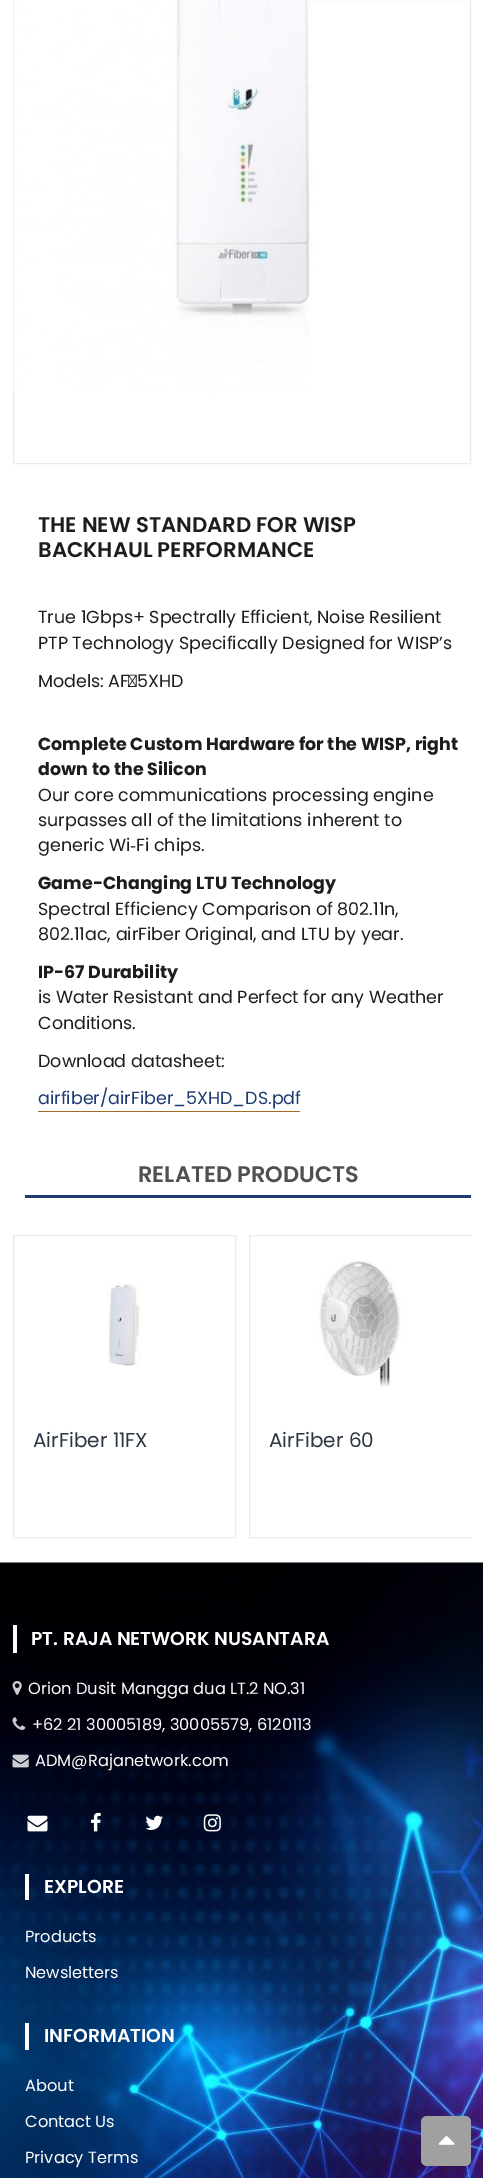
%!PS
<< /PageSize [483 2178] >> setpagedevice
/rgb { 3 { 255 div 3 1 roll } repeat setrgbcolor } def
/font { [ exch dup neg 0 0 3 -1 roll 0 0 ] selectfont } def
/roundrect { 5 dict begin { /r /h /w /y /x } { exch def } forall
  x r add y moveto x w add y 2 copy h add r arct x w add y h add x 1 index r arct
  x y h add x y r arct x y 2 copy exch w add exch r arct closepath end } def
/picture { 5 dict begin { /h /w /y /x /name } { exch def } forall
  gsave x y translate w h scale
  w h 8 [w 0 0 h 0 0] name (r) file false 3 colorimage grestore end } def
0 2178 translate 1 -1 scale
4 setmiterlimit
255 255 255 rgb
0 0 483 2178 rectfill
235 235 235 rgb
13.5 -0.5 457 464 rectstroke
(img/1.rgb) 13 0 300 393 picture
162 107 37 rgb
38 1111 262 1 rectfill
30 60 114 rgb
25 1195 446 3 rectfill
235 235 235 rgb
13.5 1235.5 222 302 rectstroke
(img/2.rgb) 106 1282 35 84 picture
gsave
0 1235 471 328 rectclip
249.5 1235.5 223 302 rectstroke
grestore
(img/3.rgb) 319 1260 82 127 picture
(img/4.rgb) 0 1562 483 616 picture
255 255 255 rgb
13 1625 4 28 rectfill
(img/5.rgb) 12 1681 10 14 picture
(img/6.rgb) 12 1717 14 13 picture
(img/7.rgb) 12 1754 17 14 picture
(img/8.rgb) 27 1815 21 17 picture
(img/9.rgb) 91 1812 10 20 picture
(img/10.rgb) 145 1815 18 15 picture
(img/11.rgb) 203 1814 18 18 picture
25 1874 4 26 rectfill
25 2023 4 27 rectfill
160 160 160 rgb
421 2116 50 50 6 roundrect fill
(img/12.rgb) 438 2136 17 9 picture
/Poppins-SemiBold 21.25 font
28 29 29 rgb
38 532 moveto (THE NEW STANDARD FOR WISP) show
38 557 moveto (BACKHAUL PERFORMANCE) show
/Poppins-Regular 17.5 font
38 623 moveto (True 1Gbps+ Spectrally Efficient, Noise Resilient) show
38 649 moveto (PTP Technology Specifically Designed for WISP’s) show
38 687 moveto -1 0 32 (Models: AF‑5XHD) widthshow
/Poppins-Bold 17.5 font
38 750 moveto (Complete Custom Hardware for the WISP, right) show
38 775 moveto (down to the Silicon) show
/Poppins-Regular 17.5 font
[
  [(Our core communications processing engine) 38 801]
  [(surpasses all of the limitations inherent to) 38 826]
  [(generic Wi) 38 851]
] { aload pop moveto show } forall
/LiberationSerif-Regular 17.5 font
130 851 moveto (‐) show
/Poppins-Regular 17.5 font
136 851 moveto (Fi chips.) show
/Poppins-Bold 17.5 font
38 889 moveto (Game-Changing LTU Technology) show
/Poppins-Regular 17.5 font
38 915 moveto (Spectral Efficiency Comparison of 802.11n,) show
38 940 moveto (802.11ac, airFiber Original, and LTU by year.) show
/Poppins-Bold 17.5 font
38 978 moveto (IP-67 Durability) show
/Poppins-Regular 17.5 font
[
  [(is Water Resistant and Perfect for any Weather) 38 1003]
  [(Conditions.) 38 1029]
  [(Download datasheet:) 38 1067]
] { aload pop moveto show } forall
30 60 114 rgb
38 1104 moveto (airfiber/airFiber_5XHD_DS.pdf) show
/Poppins-SemiBold 22.5 font
80 80 80 rgb
138 1182 moveto (RELATED PRODUCTS) show
/Poppins-Regular 20 font
43 55 67 rgb
33 1447 moveto (AirFiber 11FX) show
269 1447 moveto (AirFiber 60) show
/Poppins-SemiBold 18.75 font
255 255 255 rgb
31 1645 moveto (PT. RAJA NETWORK NUSANTARA) show
/Poppins-Regular 16.25 font
[
  [(Orion Dusit Mangga dua LT.2 NO.31) 28 1694]
  [(+62 21 30005189, 30005579, 6120113) 32 1730]
  [(ADM@Rajanetwork.com) 35 1766]
] { aload pop moveto show } forall
/Poppins-SemiBold 18.75 font
44 1893 moveto (EXPLORE) show
/Poppins-Regular 16.25 font
25 1942 moveto (Products) show
25 1978 moveto (Newsletters) show
/Poppins-SemiBold 18.75 font
44 2042 moveto (INFORMATION) show
/Poppins-Regular 16.25 font
[
  [(About) 25 2091]
  [(Contact Us) 25 2127]
  [(Privacy Terms) 25 2163]
] { aload pop moveto show } forall
showpage
